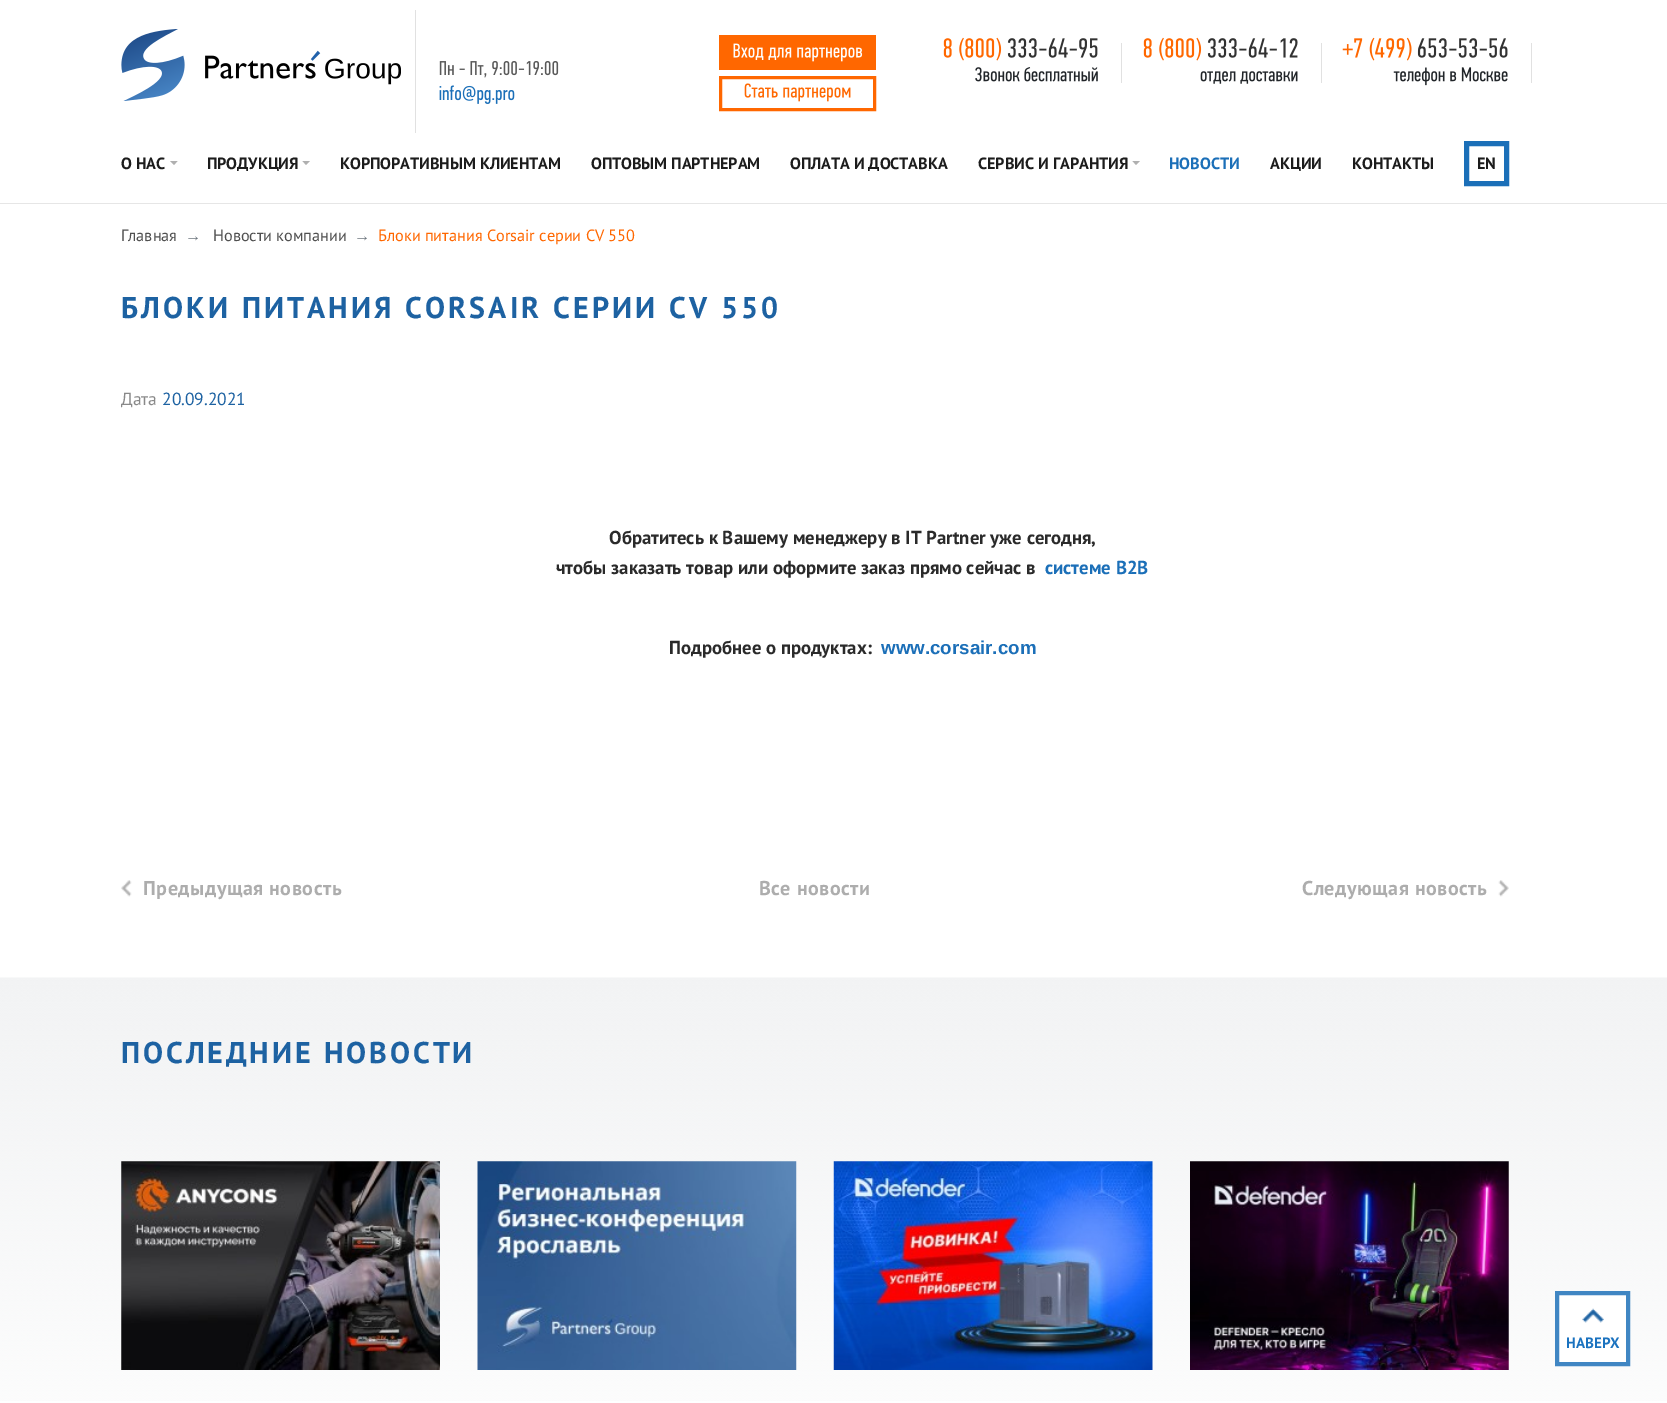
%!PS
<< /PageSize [1667 1403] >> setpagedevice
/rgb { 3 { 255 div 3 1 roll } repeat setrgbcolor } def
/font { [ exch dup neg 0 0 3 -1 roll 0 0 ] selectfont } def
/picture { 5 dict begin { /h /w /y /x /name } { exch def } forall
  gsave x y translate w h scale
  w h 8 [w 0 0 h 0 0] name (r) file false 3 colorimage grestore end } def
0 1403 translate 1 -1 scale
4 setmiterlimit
255 255 255 rgb
0 0 1667 1403 rectfill
230 230 230 rgb
0 203 1667 1 rectfill
(img/1.rgb) 121 29 280 72 picture
225 225 225 rgb
415 10 1 123 rectfill
(img/2.rgb) 439 61 120 17 picture
(img/3.rgb) 439 85 76 19 picture
255 103 0 rgb
719 35 157 35 rectfill
(img/4.rgb) 733 43 130 19 picture
3 setlinewidth
720.5 77.5 154 32 rectstroke
(img/5.rgb) 744 83 107 19 picture
(img/6.rgb) 943 37 59 24 picture
(img/7.rgb) 1007 38 91 20 picture
225 225 225 rgb
1121 43 1 40 rectfill
(img/8.rgb) 975 67 123 15 picture
(img/6.rgb) 1143 37 59 24 picture
(img/9.rgb) 1207 38 91 20 picture
1321 43 1 40 rectfill
(img/10.rgb) 1200 71 98 13 picture
(img/11.rgb) 1342 37 70 24 picture
(img/12.rgb) 1417 38 91 20 picture
1531 43 1 40 rectfill
(img/13.rgb) 1393 67 115 19 picture
176 176 176 rgb
170 161 moveto 177.5 161 lineto 174 165 lineto closepath fill
302.5 161 moveto 310 161 lineto 306 165 lineto closepath fill
1132.5 161 moveto 1140 161 lineto 1136 165 lineto closepath fill
27 111 184 rgb
5 setlinewidth
1466.5 143.5 40 40 rectstroke
(img/14.rgb) 121 880 11 17 picture
(img/15.rgb) 1498 880 11 17 picture
(img/16.rgb) 0 977 1667 424 picture
(img/17.rgb) 121 1161 319 209 picture
(img/18.rgb) 477 1161 320 209 picture
(img/19.rgb) 833 1161 320 209 picture
(img/20.rgb) 1190 1161 319 209 picture
255 255 255 rgb
1559 1295 67 67 rectfill
(img/21.rgb) 1582 1308 22 15 picture
64 134 195 rgb
4 setlinewidth
1557 1293 71 71 rectstroke
/PTSans-Bold 16.25 font
28 28 28 rgb
121 169 moveto -0.1 0 (О НАС) ashow
207 169 moveto -0.1 0 (ПРОДУКЦИЯ) ashow
340 169 moveto -0.1 0 (КОРПОРАТИВНЫМ КЛИЕНТАМ) ashow
591 169 moveto -0.1 0 (ОПТОВЫМ ПАРТНЕРАМ) ashow
790 169 moveto -0.1 0 (ОПЛАТА И ДОСТАВКА) ashow
978 169 moveto -0.1 0 (СЕРВИС И ГАРАНТИЯ) ashow
27 111 184 rgb
1169 169 moveto -0.1 0 (НОВОСТИ) ashow
28 28 28 rgb
1270 169 moveto -0.1 0 (АКЦИИ) ashow
1352 169 moveto -0.1 0 (КОНТАКТЫ) ashow
1477 169 moveto -0.1 0 (EN) ashow
/PTSans-Regular 16.25 font
80 80 80 rgb
121 241 moveto (Главная) show
/LiberationSans-Regular 16.25 font
108 117 125 rgb
185 241 moveto (→) show
/PTSans-Regular 16.25 font
80 80 80 rgb
213 241 moveto (Новости компании) show
/LiberationSans-Regular 16.25 font
108 117 125 rgb
354 241 moveto (→) show
/PTSans-Regular 16.25 font
255 103 0 rgb
378 241 moveto (Блоки питания Corsair серии CV 550) show
/PTSans-Bold 30 font
29 98 162 rgb
121 318 moveto 3.1 0 (БЛОКИ ПИТАНИЯ CORSAIR СЕРИИ CV 550) ashow
/PTSans-Regular 17.5 font
137 137 137 rgb
121 405 moveto (Дата) show
29 98 162 rgb
162 405 moveto (20.09.2021) show
/PTSans-Bold 18.75 font
42 42 42 rgb
609 544 moveto (Обратитесь к Вашему менеджеру в IT Partner уже сегодня,) show
556 574 moveto (чтобы заказать товар или оформите заказ прямо сейчас в) show
27 111 184 rgb
1045 574 moveto (системе B2B) show
42 42 42 rgb
669 654 moveto (Подробнее о продуктах:) show
/LiberationSans-Bold 18.75 font
27 111 184 rgb
881 654 moveto (www.corsair.com) show
/PTSans-Bold 20 font
173 173 173 rgb
143 895 moveto 0.5 0 (Предыдущая новость) ashow
759 895 moveto 0.5 0 (Все новости) ashow
1302 895 moveto 0.5 0 (Следующая новость) ashow
/PTSans-Bold 30 font
29 98 162 rgb
121 1063 moveto 2.9 0 (ПОСЛЕДНИЕ НОВОСТИ) ashow
/PTSans-Bold 15 font
26 114 191 rgb
1566 1348 moveto (НАВЕРХ) show
showpage
